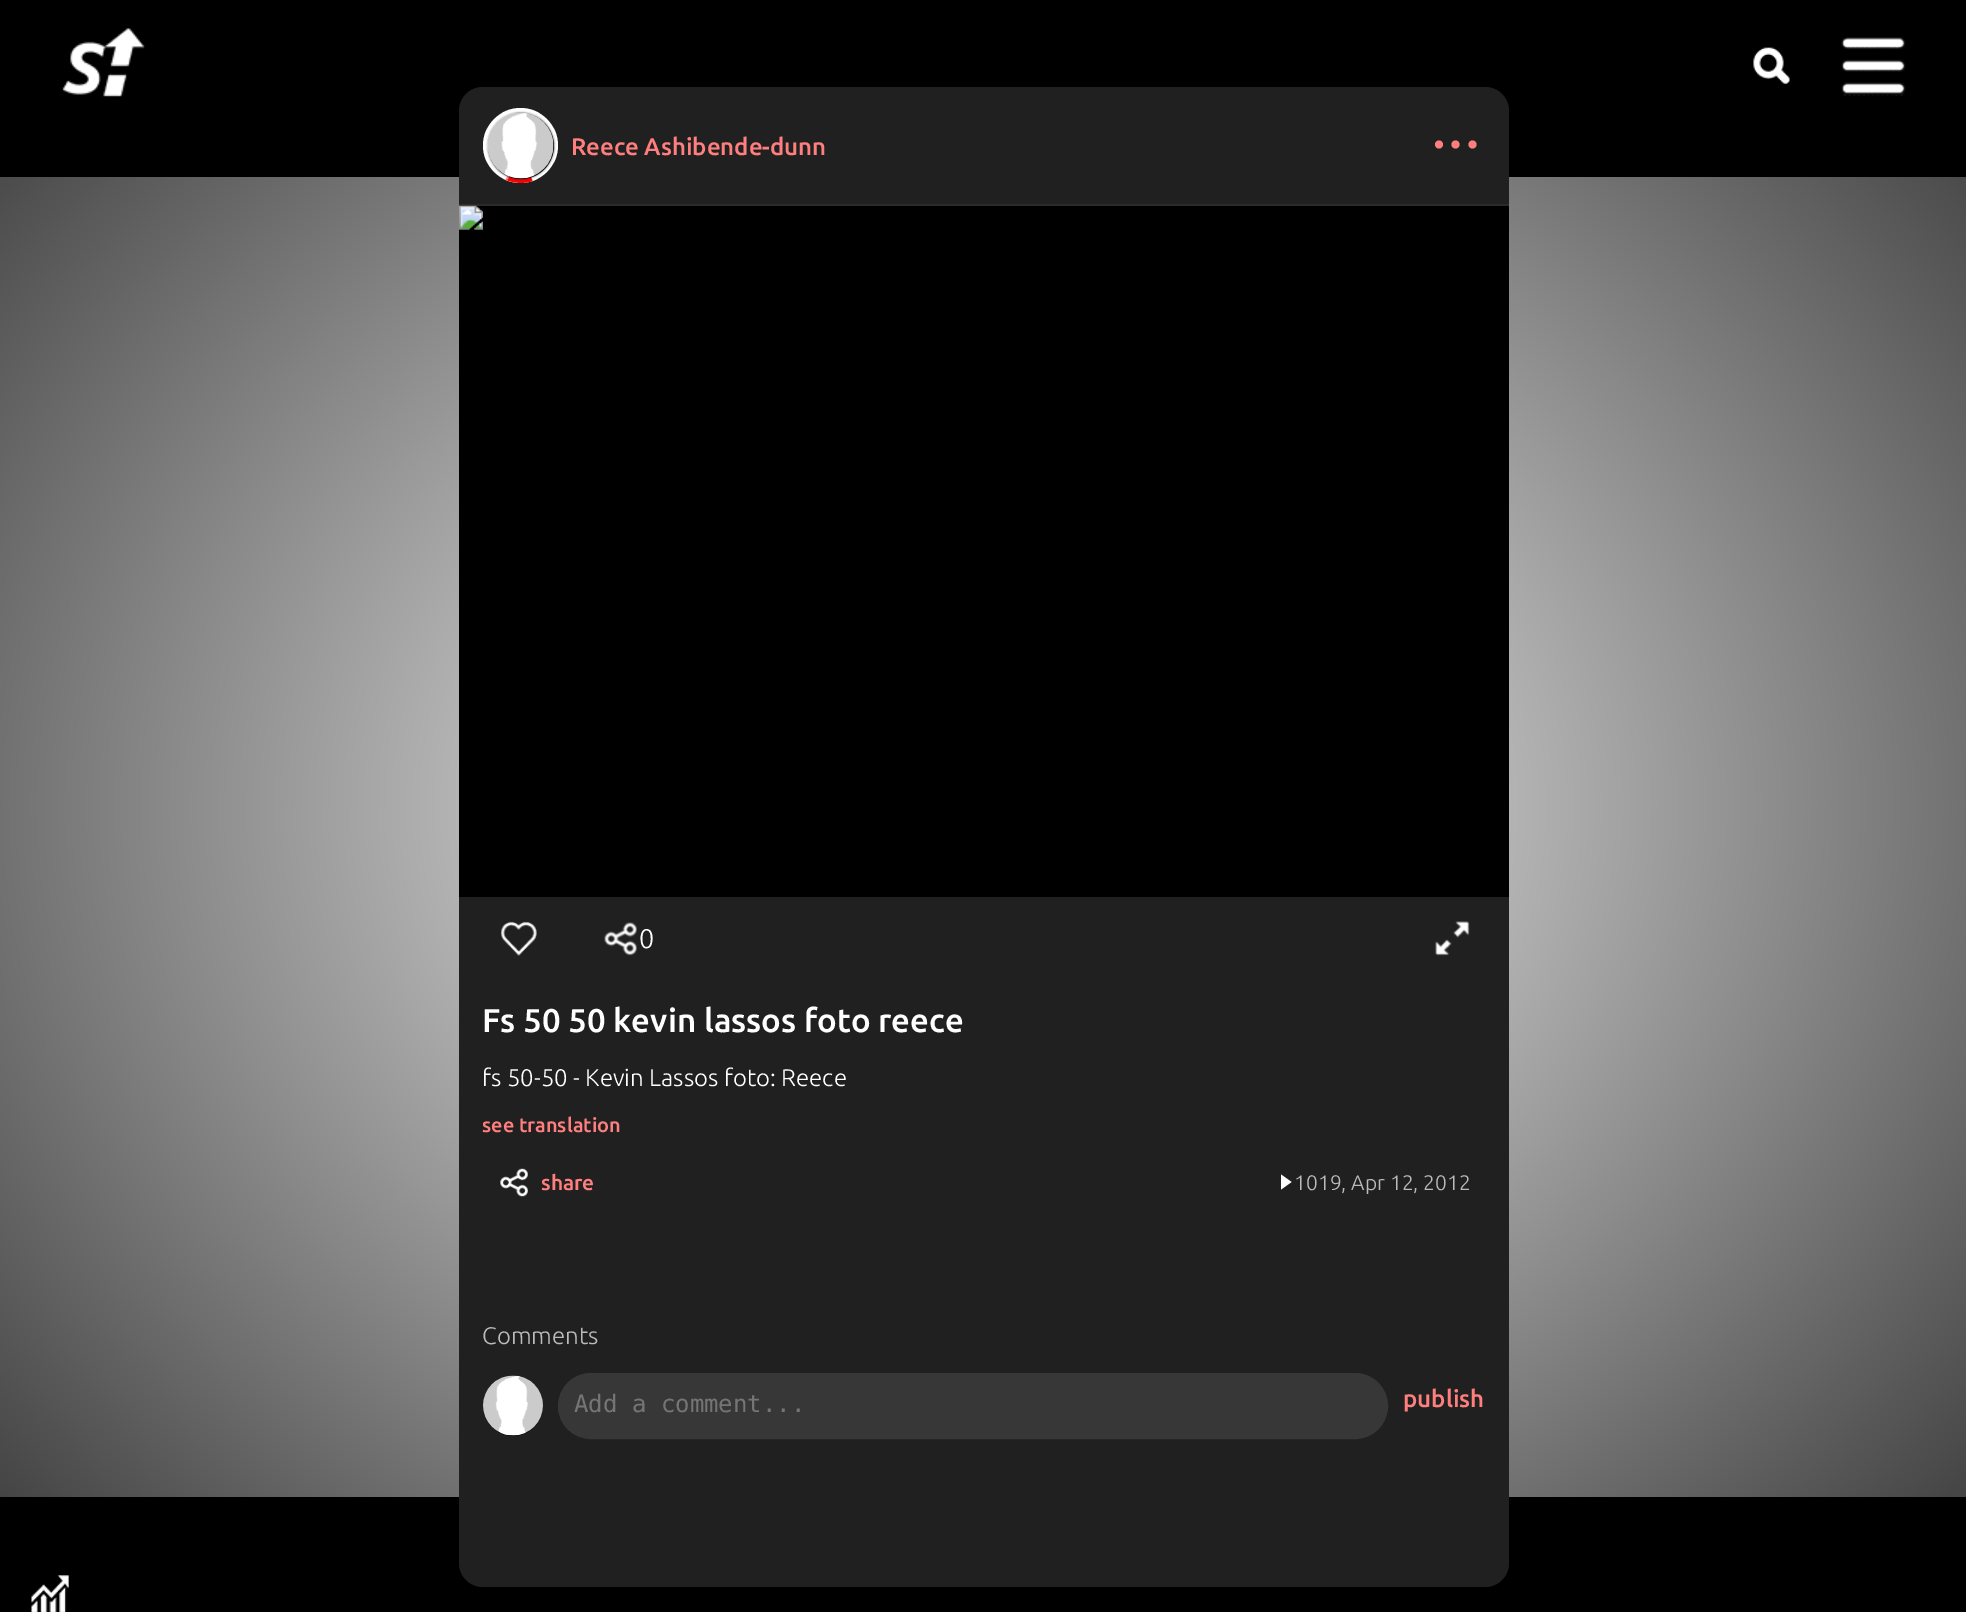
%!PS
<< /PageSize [1966 1612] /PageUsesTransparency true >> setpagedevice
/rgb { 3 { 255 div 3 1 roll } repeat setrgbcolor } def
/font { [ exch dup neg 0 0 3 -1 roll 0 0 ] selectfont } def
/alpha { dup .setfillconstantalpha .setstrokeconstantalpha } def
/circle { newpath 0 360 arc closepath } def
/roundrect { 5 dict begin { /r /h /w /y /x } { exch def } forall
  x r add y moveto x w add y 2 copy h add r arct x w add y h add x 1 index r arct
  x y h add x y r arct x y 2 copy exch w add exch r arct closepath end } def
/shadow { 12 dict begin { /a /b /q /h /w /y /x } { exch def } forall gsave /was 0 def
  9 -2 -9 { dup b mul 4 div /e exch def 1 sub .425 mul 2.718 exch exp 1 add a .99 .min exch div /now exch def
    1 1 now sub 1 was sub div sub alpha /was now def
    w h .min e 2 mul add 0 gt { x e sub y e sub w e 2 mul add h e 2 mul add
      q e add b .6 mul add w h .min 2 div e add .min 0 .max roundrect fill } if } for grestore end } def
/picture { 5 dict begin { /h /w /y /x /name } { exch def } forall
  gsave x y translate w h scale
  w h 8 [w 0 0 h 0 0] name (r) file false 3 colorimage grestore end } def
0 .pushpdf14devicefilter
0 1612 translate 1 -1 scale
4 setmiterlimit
255 255 255 rgb
0 0 1966 1612 rectfill
gsave 0 177 moveto 1966 177 lineto 1966 1497 lineto 0 1497 lineto closepath clip newpath 983 806 translate 1391 1140 scale
<< /ShadingType 3 /ColorSpace /DeviceRGB /Coords [0 0 0 0 0 1] /Extend [true true] /Function << /FunctionType 2 /Domain [0 1] /C0 [1 1 1] /C1 [0.216 0.216 0.216] /N 1 >> >> shfill grestore
0 0 0 rgb
0 0 1966 177 rectfill
(img/1.rgb) 62 28 83 69 picture
(img/2.rgb) 1753 47 37 37 picture
(img/3.rgb) 1841 37 65 59 picture
0 1497 1966 115 rectfill
32 32 32 rgb
459 87 1050 1500 24 roundrect fill
255 255 255 rgb
520.5 145.5 37.5 circle fill
255 128 128 rgb
520 146 moveto 507.5 180.5 lineto 506.5 180.5 lineto closepath fill
0.5 alpha
255 0 0 rgb
520 146 moveto 506.5 180.5 lineto 505.5 180 lineto closepath fill
1 alpha
520 146 moveto 532.5 181 lineto 524.5 184 515.5 183.5 507.5 180.5 curveto closepath fill
32 32 32 rgb
488 113 66 66 33 1 1 shadow
0 0 0 rgb
521 146 33 circle fill
(img/4.rgb) 487 113 67 66 picture
255 127 127 rgb
1439 144.5 4 circle fill
1455.5 144.5 4 circle fill
1472.5 144.5 4 circle fill
0 0 0 rgb
459 206 1050 691 rectfill
43 43 43 rgb
459 204 1050 2 rectfill
(img/5.rgb) 459 205 24 25 picture
(img/6.rgb) 501 921 36 35 picture
(img/7.rgb) 604 922 33 34 picture
(img/8.rgb) 1435 921 35 35 picture
(img/9.rgb) 500 1168 28 29 picture
255 255 255 rgb
1281 1189.5 moveto 1281 1174.5 lineto 1291.5 1182 lineto closepath fill
0 0 0 rgb
513 1406 30 circle fill
(img/10.rgb) 483 1375 60 61 picture
55 55 55 rgb
559 1374 828 64 32 roundrect gsave fill grestore
2 setlinewidth
stroke
(img/11.rgb) 31 1575 38 37 picture
/Ubuntu-Medium 24 font
255 127 127 rgb
571 155 moveto (Reece Ashibende-dunn) show
/Ubuntu-Light 27 font
255 255 255 rgb
639 948 moveto (0) show
/Ubuntu-Medium 33 font
482 1032 moveto (Fs 50 50 kevin lassos foto reece) show
/Ubuntu-Light 24 font
482 1086 moveto (fs 50-50 - Kevin Lassos foto: Reece) show
/Ubuntu-Medium 20 font
255 127 127 rgb
482 1132 moveto (see translation) show
/Ubuntu-Medium 21 font
541 1190 moveto (share) show
/Ubuntu-Light 21 font
187 187 187 rgb
1294 1190 moveto (1019, Apr 12, 2012) show
/Ubuntu-Light 24 font
482 1344 moveto (Comments) show
/DejaVuSansMono-Regular 24 font
117 117 117 rgb
574 1412 moveto (Add a comment...) show
/Ubuntu-Medium 24 font
255 127 127 rgb
1403 1407 moveto (publish) show
.poppdf14devicefilter showpage
